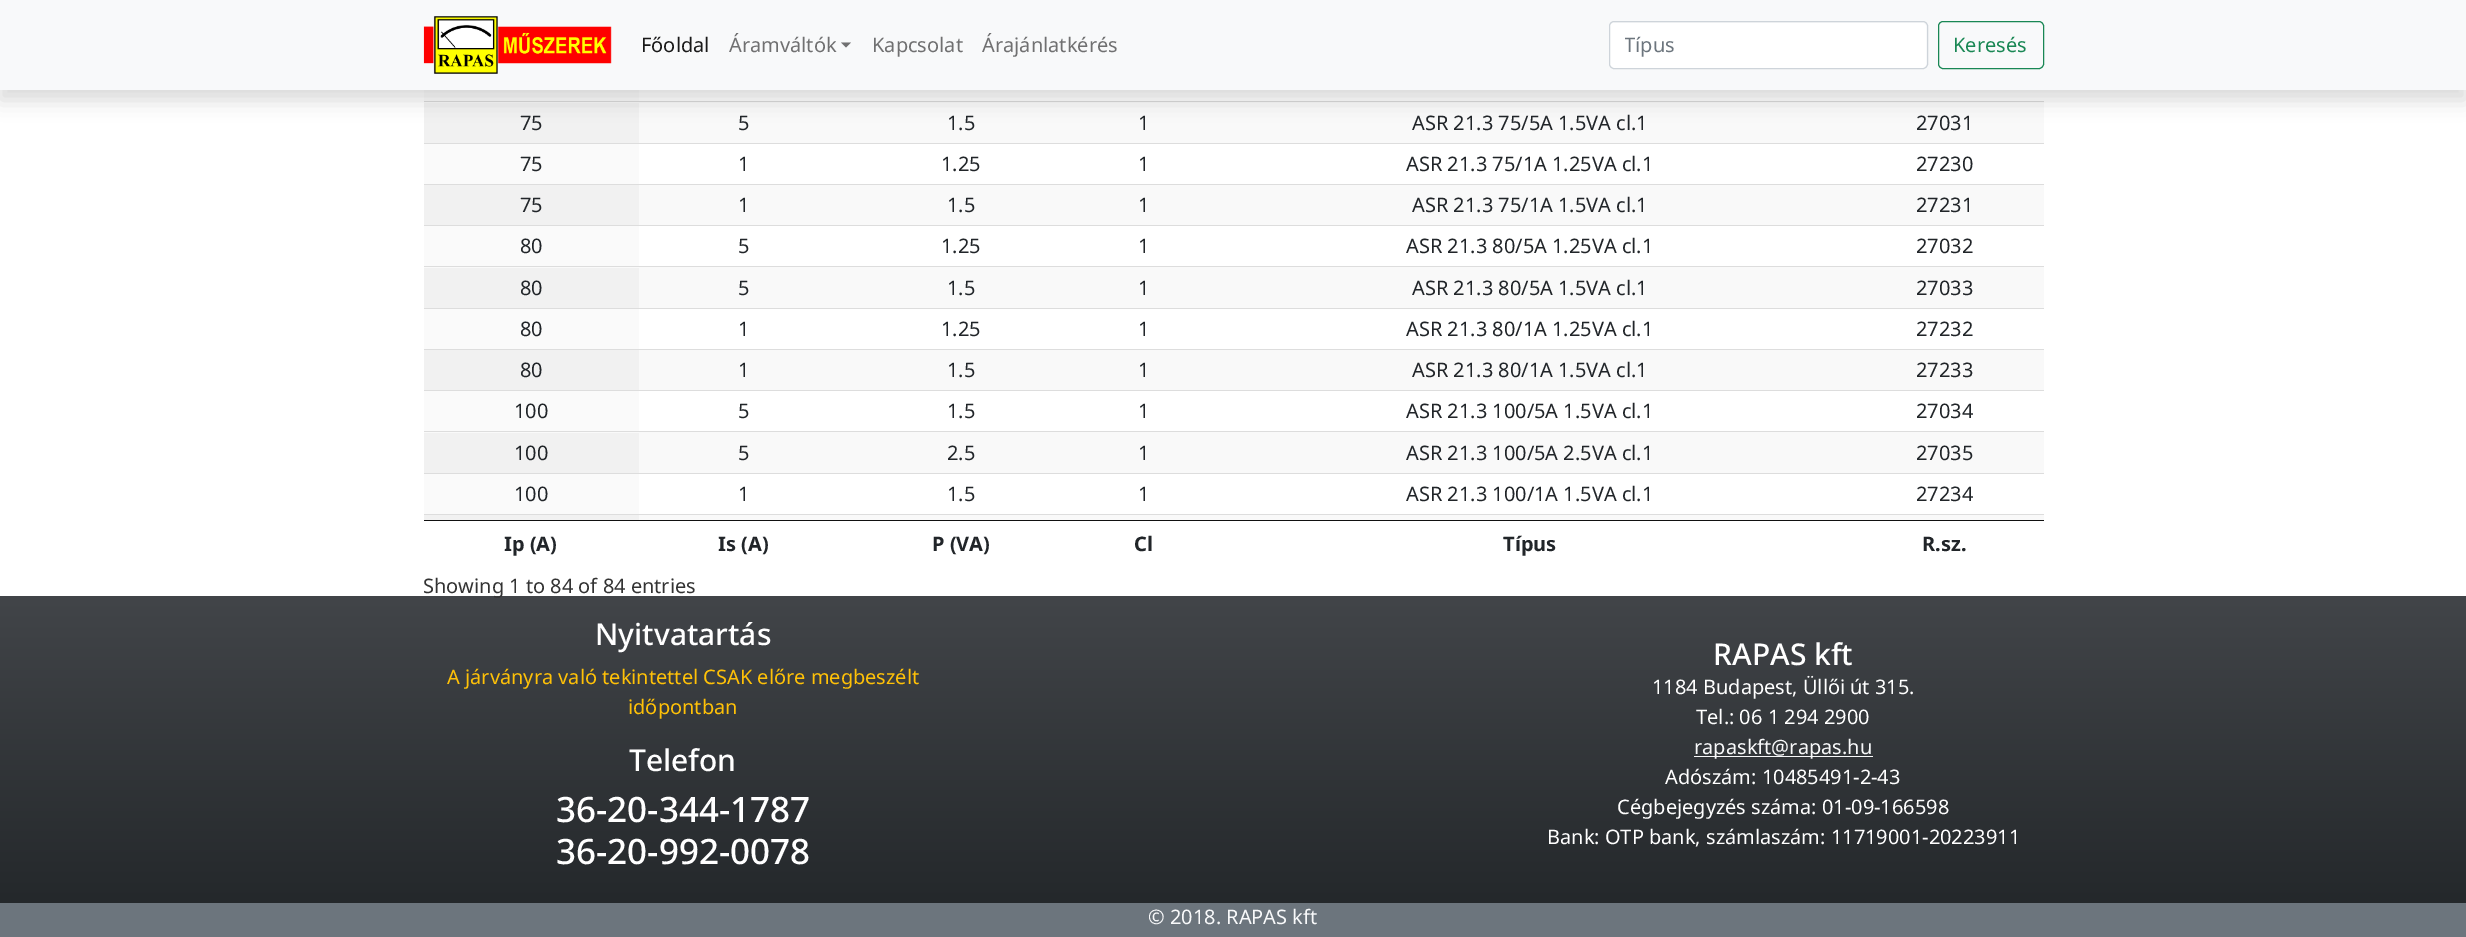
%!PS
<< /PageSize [2466 937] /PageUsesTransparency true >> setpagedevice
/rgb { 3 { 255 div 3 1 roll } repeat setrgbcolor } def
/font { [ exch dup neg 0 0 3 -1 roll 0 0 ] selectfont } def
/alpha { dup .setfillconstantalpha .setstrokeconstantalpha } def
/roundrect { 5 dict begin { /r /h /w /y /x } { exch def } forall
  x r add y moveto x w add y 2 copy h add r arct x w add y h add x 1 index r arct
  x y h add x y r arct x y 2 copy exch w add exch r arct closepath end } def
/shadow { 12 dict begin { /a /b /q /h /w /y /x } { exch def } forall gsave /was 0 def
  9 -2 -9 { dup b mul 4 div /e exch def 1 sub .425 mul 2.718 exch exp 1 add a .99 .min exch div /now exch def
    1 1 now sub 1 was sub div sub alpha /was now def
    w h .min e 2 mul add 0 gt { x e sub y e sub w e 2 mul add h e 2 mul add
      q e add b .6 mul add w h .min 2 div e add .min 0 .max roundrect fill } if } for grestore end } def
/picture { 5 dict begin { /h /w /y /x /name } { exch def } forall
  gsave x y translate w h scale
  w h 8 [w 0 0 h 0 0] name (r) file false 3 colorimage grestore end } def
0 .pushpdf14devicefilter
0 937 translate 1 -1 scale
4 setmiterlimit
255 255 255 rgb
0 0 2466 937 rectfill
[
  [424 90 215 11 250 250 250]
  [424 102 1620 41 249 249 249]
  [424 103 215 40 241 241 241]
  [424 101 1620 1 221 221 221]
] { aload pop rgb rectfill } forall
0 0 0 rgb
0 10 2466 90 0 10 0.15 shadow
248 249 250 rgb
0 0 2466 90 rectfill
(img/1.rgb) 423 16 189 58 picture
112 112 113 rgb
841 42.5 moveto 851 42.5 lineto 846 47.5 lineto closepath fill
255 255 255 rgb
1610 23 316 45 4 roundrect fill
206 212 218 rgb
1609.5 21.5 318 47 4.5 roundrect stroke
25 135 84 rgb
1938.5 21.5 105 47 4.5 roundrect stroke
[
  [424 144 215 40 250 250 250]
  [424 143 1620 1 221 221 221]
  [639 185 1405 40 249 249 249]
  [424 185 215 40 241 241 241]
  [424 184 1620 1 221 221 221]
  [424 226 215 40 250 250 250]
  [424 225 1620 1 221 221 221]
  [424 267 1620 41 249 249 249]
  [424 268 215 40 241 241 241]
  [424 266 1620 1 221 221 221]
  [424 309 215 40 250 250 250]
  [424 308 1620 1 221 221 221]
  [639 350 1405 40 249 249 249]
  [424 350 215 40 241 241 241]
  [424 349 1620 1 221 221 221]
  [424 391 215 40 250 250 250]
  [424 390 1620 1 221 221 221]
  [424 432 1620 41 249 249 249]
  [424 433 215 40 241 241 241]
  [424 431 1620 1 221 221 221]
  [424 474 215 40 250 250 250]
  [424 473 1620 1 221 221 221]
  [639 515 1405 5 249 249 249]
  [424 515 215 5 241 241 241]
  [424 514 1620 1 221 221 221]
  [424 520 1620 1 17 17 17]
] { aload pop rgb rectfill } forall
gsave 0 596 moveto 2466 596 lineto 2466 903 lineto 0 903 lineto closepath clip newpath
<< /ShadingType 2 /ColorSpace /DeviceRGB /Coords [1233 596 1233 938] /Extend [true true] /Function << /FunctionType 2 /Domain [0 1] /C0 [0.259 0.271 0.286] /C1 [0.129 0.145 0.157] /N 1 >> >> shfill grestore
248 249 250 rgb
1694 756 179 1 rectfill
108 117 125 rgb
0 903 2466 34 rectfill
/NotoSans-Regular 20 font
25 25 25 rgb
641 52 moveto (Főoldal) show
112 112 113 rgb
[
  [(Áramváltók) 729 52]
  [(Kapcsolat) 872 52]
  [(Árajánlatkérés) 982 52]
] { aload pop moveto show } forall
gsave
1625 31 268 28 rectclip
108 117 125 rgb
1624 52 moveto (Típus) show
grestore
25 135 84 rgb
1953 52 moveto (Keresés) show
33 37 41 rgb
[
  [(75) 520 130]
  [(5) 738 130]
  [(1.5) 947 130]
  [(1) 1138 130]
  [(ASR 21.3 75/5A 1.5VA cl.1) 1412 130]
  [(27031) 1916 130]
  [(75) 520 171]
  [(1) 738 171]
  [(1.25) 941 171]
  [(1) 1138 171]
  [(ASR 21.3 75/1A 1.25VA cl.1) 1406 171]
  [(27230) 1916 171]
  [(75) 520 212]
  [(1) 738 212]
  [(1.5) 947 212]
  [(1) 1138 212]
  [(ASR 21.3 75/1A 1.5VA cl.1) 1412 212]
  [(27231) 1916 212]
  [(80) 520 253]
  [(5) 738 253]
  [(1.25) 941 253]
  [(1) 1138 253]
  [(ASR 21.3 80/5A 1.25VA cl.1) 1406 253]
  [(27032) 1916 253]
  [(80) 520 295]
  [(5) 738 295]
  [(1.5) 947 295]
  [(1) 1138 295]
  [(ASR 21.3 80/5A 1.5VA cl.1) 1412 295]
  [(27033) 1916 295]
  [(80) 520 336]
  [(1) 738 336]
  [(1.25) 941 336]
  [(1) 1138 336]
  [(ASR 21.3 80/1A 1.25VA cl.1) 1406 336]
  [(27232) 1916 336]
  [(80) 520 377]
  [(1) 738 377]
  [(1.5) 947 377]
  [(1) 1138 377]
  [(ASR 21.3 80/1A 1.5VA cl.1) 1412 377]
  [(27233) 1916 377]
  [(100) 514 418]
  [(5) 738 418]
  [(1.5) 947 418]
  [(1) 1138 418]
  [(ASR 21.3 100/5A 1.5VA cl.1) 1406 418]
  [(27034) 1916 418]
  [(100) 514 460]
  [(5) 738 460]
  [(2.5) 947 460]
  [(1) 1138 460]
  [(ASR 21.3 100/5A 2.5VA cl.1) 1406 460]
  [(27035) 1916 460]
  [(100) 514 501]
  [(1) 738 501]
  [(1.5) 947 501]
  [(1) 1138 501]
  [(ASR 21.3 100/1A 1.5VA cl.1) 1406 501]
  [(27234) 1916 501]
] { aload pop moveto show } forall
/NotoSans-Bold 20 font
[
  [(Ip \(A\)) 504 551]
  [(Is \(A\)) 718 551]
  [(P \(VA\)) 932 551]
  [(Cl) 1134 551]
  [(Típus) 1503 551]
  [(R.sz.) 1922 551]
] { aload pop moveto show } forall
/NotoSans-Regular 20 font
51 51 51 rgb
423 593 moveto (Showing 1 to 84 of 84 entries) show
/NotoSans-Medium 30 font
255 255 255 rgb
595 645 moveto (Nyitvatartás) show
/NotoSans-Regular 20 font
255 193 7 rgb
447 684 moveto (A járványra való tekintettel CSAK előre megbeszélt) show
628 714 moveto (időpontban) show
/NotoSans-Medium 30 font
255 255 255 rgb
629 771 moveto (Telefon) show
/NotoSans-Medium 35 font
556 822 moveto (36-20-344-1787) show
556 864 moveto (36-20-992-0078) show
/NotoSans-Medium 30 font
1713 665 moveto (RAPAS kft) show
/NotoSans-Regular 20 font
1652 694 moveto (1184 Budapest, Üllői út 315.) show
1696 724 moveto (Tel.: 06 1 294 2900) show
248 249 250 rgb
1694 754 moveto (rapaskft@rapas.hu) show
255 255 255 rgb
[
  [(Adószám: 10485491-2-43) 1665 784]
  [(Cégbejegyzés száma: 01-09-166598) 1617 814]
  [(Bank: OTP bank, számlaszám: 11719001-20223911) 1547 844]
] { aload pop moveto show } forall
248 249 250 rgb
1148 924 moveto (© 2018. RAPAS kft) show
.poppdf14devicefilter showpage
